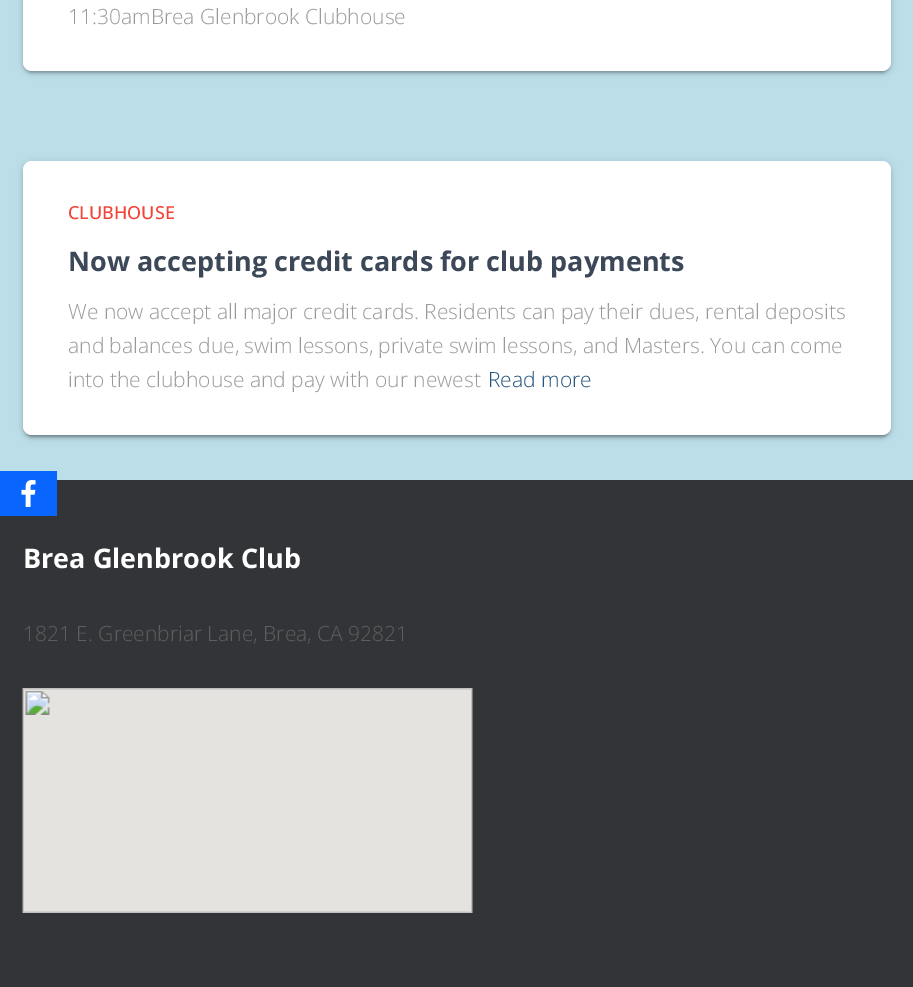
%!PS
<< /PageSize [913 987] /PageUsesTransparency true >> setpagedevice
/rgb { 3 { 255 div 3 1 roll } repeat setrgbcolor } def
/font { [ exch dup neg 0 0 3 -1 roll 0 0 ] selectfont } def
/alpha { dup .setfillconstantalpha .setstrokeconstantalpha } def
/roundrect { 5 dict begin { /r /h /w /y /x } { exch def } forall
  x r add y moveto x w add y 2 copy h add r arct x w add y h add x 1 index r arct
  x y h add x y r arct x y 2 copy exch w add exch r arct closepath end } def
/shadow { 12 dict begin { /a /b /q /h /w /y /x } { exch def } forall gsave /was 0 def
  9 -2 -9 { dup b mul 4 div /e exch def 1 sub .425 mul 2.718 exch exp 1 add a .99 .min exch div /now exch def
    1 1 now sub 1 was sub div sub alpha /was now def
    w h .min e 2 mul add 0 gt { x e sub y e sub w e 2 mul add h e 2 mul add
      q e add b .6 mul add w h .min 2 div e add .min 0 .max roundrect fill } if } for grestore end } def
/picture { 5 dict begin { /h /w /y /x /name } { exch def } forall
  gsave x y translate w h scale
  w h 8 [w 0 0 h 0 0] name (r) file false 3 colorimage grestore end } def
0 .pushpdf14devicefilter
0 987 translate 1 -1 scale
4 setmiterlimit
188 222 233 rgb
0 0 913 987 rectfill
0 0 0 rgb
23 -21 868 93 9 4 0.12 shadow
26 -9 862 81 6 1 0.2 shadow
23 -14 868 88 9 1.5 0.14 shadow
255 255 255 rgb
23 -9 868 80 9 roundrect fill
0 0 0 rgb
23 162 868 275 9 4 0.12 shadow
26 168 862 269 6 1 0.2 shadow
23 164 868 274 9 1.5 0.14 shadow
255 255 255 rgb
23 161 868 274 9 roundrect fill
50 52 55 rgb
0 480 913 507 rectfill
(img/1.rgb) 22 688 451 225 picture
8 102 255 rgb
0 471 57 45 rectfill
(img/2.rgb) 21 480 15 27 picture
/OpenSans-Light 21 font
153 153 153 rgb
68 24 moveto (11:30amBrea Glenbrook Clubhouse) show
/OpenSans-Medium 18 font
244 67 54 rgb
68 219 moveto (CLUBHOUSE) show
/OpenSans-Bold 27 font
60 72 88 rgb
68 271 moveto (Now accepting credit cards for club payments) show
/OpenSans-Light 21 font
153 153 153 rgb
[
  [(We now accept all major credit cards. Residents can pay their dues, rental deposits) 68 319]
  [(and balances due, swim lessons, private swim lessons, and Masters. You can come) 68 353]
  [(into the clubhouse and pay with our newest) 68 387]
] { aload pop moveto show } forall
35 82 124 rgb
488 387 moveto (Read more) show
/OpenSans-Bold 27 font
255 255 255 rgb
23 568 moveto (Brea Glenbrook Club) show
/OpenSans-Light 21 font
94 94 94 rgb
23 641 moveto (1821 E. Greenbriar Lane, Brea, CA 92821) show
.poppdf14devicefilter showpage
